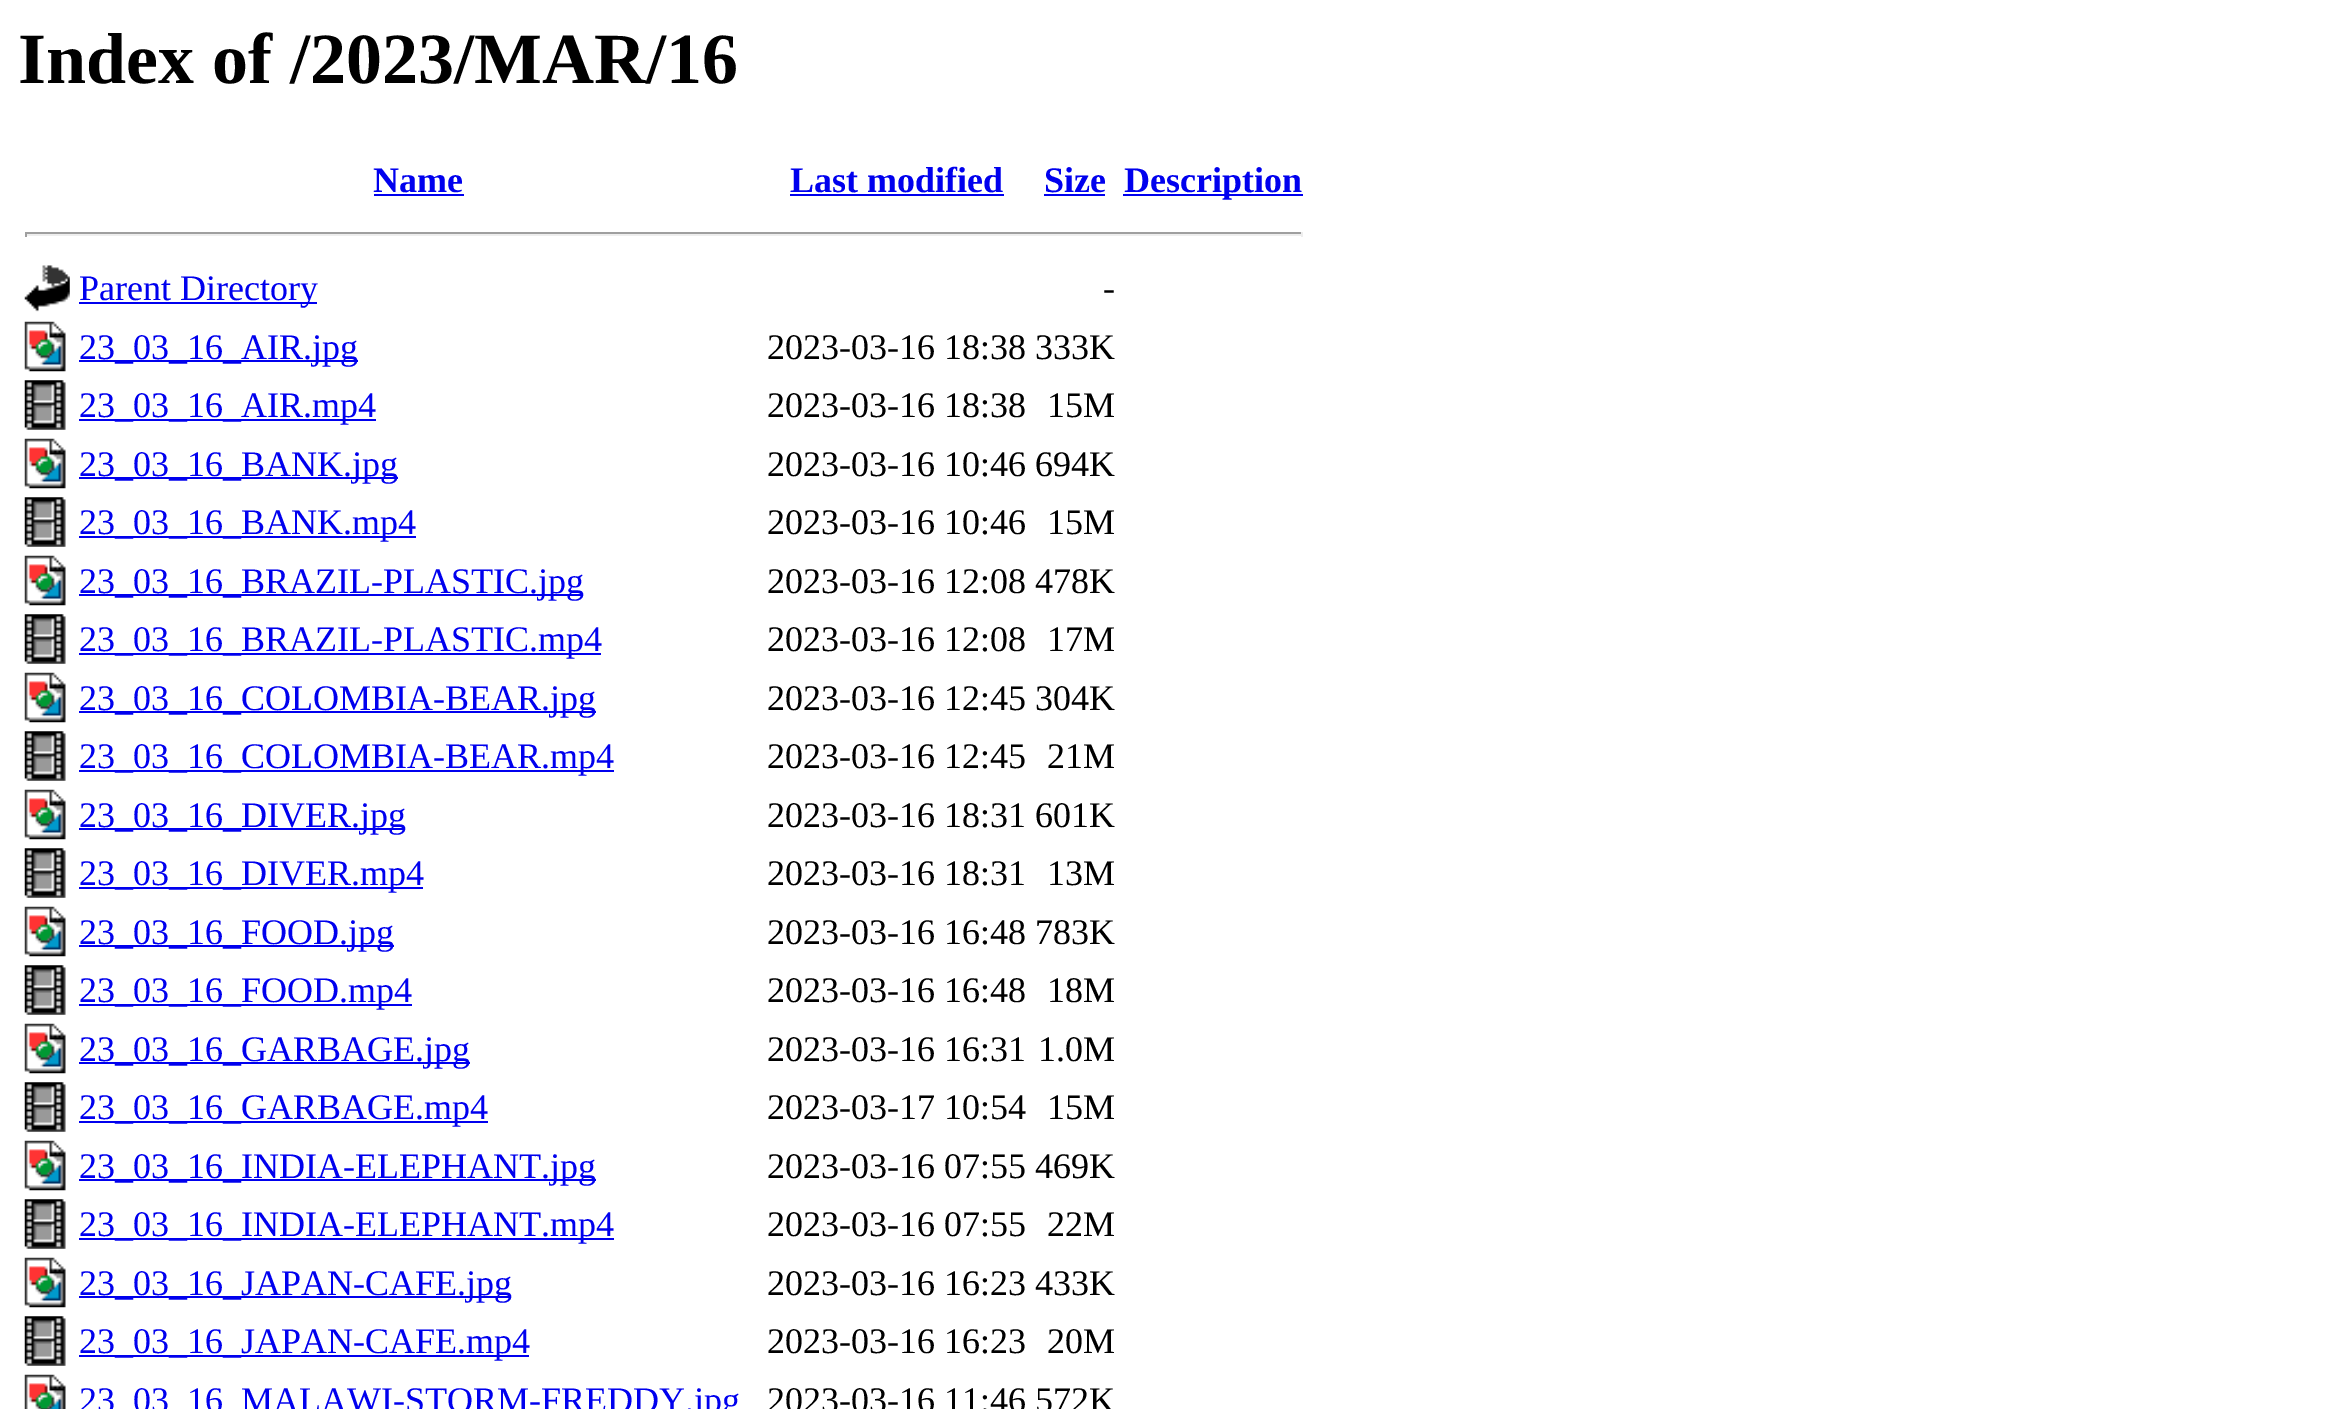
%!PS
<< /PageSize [2349 1409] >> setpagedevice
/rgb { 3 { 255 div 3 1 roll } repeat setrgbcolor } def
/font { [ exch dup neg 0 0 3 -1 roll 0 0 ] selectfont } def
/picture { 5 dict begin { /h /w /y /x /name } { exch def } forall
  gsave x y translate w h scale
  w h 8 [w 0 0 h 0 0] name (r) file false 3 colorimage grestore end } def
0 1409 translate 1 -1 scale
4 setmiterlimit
255 255 255 rgb
0 0 2349 1409 rectfill
[
  [374 194 90 2 0 0 238]
  [790 194 214 2 0 0 238]
  [1044 194 61 2 0 0 238]
  [1123 194 180 2 0 0 238]
  [25 232 1278 2 159 159 159]
  [1301 232 2 5 238 238 238]
  [25 234 1278 2 238 238 238]
  [25 232 2 5 159 159 159]
] { aload pop rgb rectfill } forall
(img/1.rgb) 24 265 46 47 picture
0 0 238 rgb
79 302 238 2 rectfill
(img/2.rgb) 24 321 42 51 picture
79 360 279 2 rectfill
(img/3.rgb) 24 380 42 50 picture
79 419 297 2 rectfill
(img/2.rgb) 24 438 42 51 picture
79 477 319 2 rectfill
(img/3.rgb) 24 497 42 50 picture
79 536 337 2 rectfill
(img/4.rgb) 24 555 42 51 picture
79 594 504 2 rectfill
(img/3.rgb) 24 614 42 50 picture
79 653 522 2 rectfill
(img/2.rgb) 24 672 42 51 picture
79 711 517 2 rectfill
(img/3.rgb) 24 731 42 50 picture
79 770 535 2 rectfill
(img/2.rgb) 24 789 42 51 picture
79 828 326 2 rectfill
(img/3.rgb) 24 848 42 50 picture
79 887 344 2 rectfill
(img/2.rgb) 24 906 42 51 picture
79 945 315 2 rectfill
(img/3.rgb) 24 965 42 50 picture
79 1004 333 2 rectfill
(img/2.rgb) 24 1023 42 51 picture
79 1062 391 2 rectfill
(img/3.rgb) 24 1082 42 50 picture
79 1121 409 2 rectfill
(img/4.rgb) 24 1140 42 51 picture
79 1179 517 2 rectfill
(img/3.rgb) 24 1199 42 50 picture
79 1238 535 2 rectfill
(img/2.rgb) 24 1257 42 51 picture
79 1296 432 2 rectfill
(img/3.rgb) 24 1316 42 50 picture
79 1355 450 2 rectfill
(img/5.rgb) 24 1374 42 35 picture
/LiberationSerif-Bold 72 font
0 0 0 rgb
18 83 moveto (Index of /2023/MAR/16) show
/LiberationSerif-Bold 36 font
0 0 238 rgb
[
  [(Name) 373 192]
  [(Last modified) 790 192]
  [(Size) 1044 192]
  [(Description) 1124 192]
] { aload pop moveto show } forall
/LiberationSerif-Regular 36 font
79 300 moveto (Parent Directory) show
0 0 0 rgb
1103 300 moveto (-) show
0 0 238 rgb
79 359 moveto (23_03_16_AIR.jpg) show
0 0 0 rgb
767 359 moveto (2023-03-16 18:38 333K) show
0 0 238 rgb
79 417 moveto (23_03_16_AIR.mp4) show
0 0 0 rgb
767 417 moveto (2023-03-16 18:38) show
1047 417 moveto (15M) show
0 0 238 rgb
79 476 moveto (23_03_16_BANK.jpg) show
0 0 0 rgb
767 476 moveto (2023-03-16 10:46 694K) show
0 0 238 rgb
79 534 moveto (23_03_16_BANK.mp4) show
0 0 0 rgb
767 534 moveto (2023-03-16 10:46) show
1047 534 moveto (15M) show
0 0 238 rgb
79 593 moveto (23_03_16_BRAZIL-PLASTIC.jpg) show
0 0 0 rgb
767 593 moveto (2023-03-16 12:08 478K) show
0 0 238 rgb
79 651 moveto (23_03_16_BRAZIL-PLASTIC.mp4) show
0 0 0 rgb
767 651 moveto (2023-03-16 12:08) show
1047 651 moveto (17M) show
0 0 238 rgb
79 710 moveto (23_03_16_COLOMBIA-BEAR.jpg) show
0 0 0 rgb
767 710 moveto (2023-03-16 12:45 304K) show
0 0 238 rgb
79 768 moveto (23_03_16_COLOMBIA-BEAR.mp4) show
0 0 0 rgb
767 768 moveto (2023-03-16 12:45) show
1047 768 moveto (21M) show
0 0 238 rgb
79 827 moveto (23_03_16_DIVER.jpg) show
0 0 0 rgb
767 827 moveto (2023-03-16 18:31 601K) show
0 0 238 rgb
79 885 moveto (23_03_16_DIVER.mp4) show
0 0 0 rgb
767 885 moveto (2023-03-16 18:31) show
1047 885 moveto (13M) show
0 0 238 rgb
79 944 moveto (23_03_16_FOOD.jpg) show
0 0 0 rgb
767 944 moveto (2023-03-16 16:48 783K) show
0 0 238 rgb
79 1002 moveto (23_03_16_FOOD.mp4) show
0 0 0 rgb
767 1002 moveto (2023-03-16 16:48) show
1047 1002 moveto (18M) show
0 0 238 rgb
79 1061 moveto (23_03_16_GARBAGE.jpg) show
0 0 0 rgb
767 1061 moveto (2023-03-16 16:31) show
1038 1061 moveto (1.0M) show
0 0 238 rgb
79 1119 moveto (23_03_16_GARBAGE.mp4) show
0 0 0 rgb
767 1119 moveto (2023-03-17 10:54) show
1047 1119 moveto (15M) show
0 0 238 rgb
79 1178 moveto (23_03_16_INDIA-ELEPHANT.jpg) show
0 0 0 rgb
767 1178 moveto (2023-03-16 07:55 469K) show
0 0 238 rgb
79 1236 moveto (23_03_16_INDIA-ELEPHANT.mp4) show
0 0 0 rgb
767 1236 moveto (2023-03-16 07:55) show
1047 1236 moveto (22M) show
0 0 238 rgb
79 1295 moveto (23_03_16_JAPAN-CAFE.jpg) show
0 0 0 rgb
767 1295 moveto (2023-03-16 16:23 433K) show
0 0 238 rgb
79 1353 moveto (23_03_16_JAPAN-CAFE.mp4) show
0 0 0 rgb
767 1353 moveto (2023-03-16 16:23) show
1047 1353 moveto (20M) show
0 0 238 rgb
79 1412 moveto (23_03_16_MALAWI-STORM-FREDDY.jpg) show
0 0 0 rgb
767 1412 moveto (2023-03-16 11:46 572K) show
showpage
